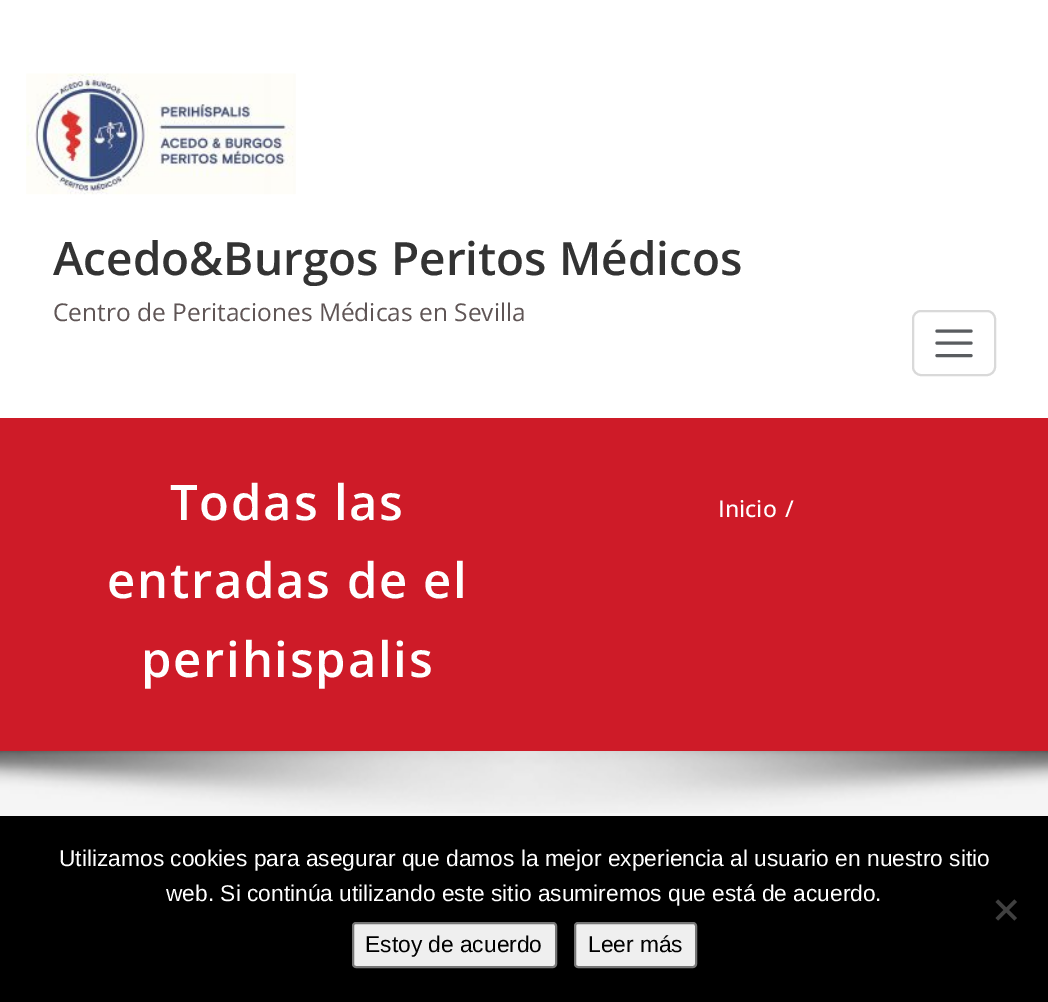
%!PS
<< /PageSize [1048 1002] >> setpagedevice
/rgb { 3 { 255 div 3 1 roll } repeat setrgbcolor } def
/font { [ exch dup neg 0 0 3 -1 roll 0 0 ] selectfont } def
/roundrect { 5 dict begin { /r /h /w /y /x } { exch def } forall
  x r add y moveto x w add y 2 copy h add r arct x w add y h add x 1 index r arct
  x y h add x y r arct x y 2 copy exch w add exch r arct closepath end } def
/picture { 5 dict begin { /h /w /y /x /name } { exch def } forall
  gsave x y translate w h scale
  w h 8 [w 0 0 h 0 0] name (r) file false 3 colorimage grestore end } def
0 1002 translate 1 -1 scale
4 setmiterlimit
245 245 245 rgb
0 0 1048 1002 rectfill
255 255 255 rgb
0 0 1048 418 rectfill
(img/1.rgb) 26 73 270 122 picture
217 217 217 rgb
2 setlinewidth
913 311 82 64 8 roundrect stroke
89 92 95 rgb
3.1 setlinewidth
1 setlinecap
937 331 moveto 971 331 lineto 937 343 moveto 971 343 lineto 937 355.5 moveto 971 355.5 lineto stroke
206 27 40 rgb
0 418 1048 333 rectfill
(img/2.rgb) 0 751 1048 62 picture
0 0 0 rgb
0 816 1048 186 rectfill
64 64 64 rgb
1014.5 899.5 moveto 1017 902 lineto 998 920.5 lineto 995.5 918 lineto closepath fill
995.5 902 moveto 998 899.5 lineto 1017 918 lineto 1014.5 920.5 lineto closepath fill
239 239 239 rgb
353 923 203 44 3 roundrect gsave fill grestore
118 118 118 rgb
2 setlinewidth
0 setlinecap
stroke
239 239 239 rgb
575 923 121 44 3 roundrect gsave fill grestore
118 118 118 rgb
stroke
/OpenSans-SemiBold 46 font
51 51 51 rgb
53 275 moveto (Acedo&Burgos Peritos Médicos) show
/OpenSans-Regular 24.5 font
95 85 85 rgb
53 321 moveto (Centro de Peritaciones Médicas en Sevilla) show
/OpenSans-SemiBold 49 font
255 255 255 rgb
170 520 moveto 1.75 0 (Todas las) ashow
107 598 moveto 1.75 0 (entradas de el) ashow
141 677 moveto 1.75 0 (perihispalis) ashow
/OpenSans-Medium 23 font
718 517 moveto (Inicio) show
785 517 moveto (/) show
/LiberationSans-Regular 22.75 font
59 866 moveto (Utilizamos cookies para asegurar que damos la mejor experiencia al usuario en nuestro sitio) show
166 901 moveto (web. Si continúa utilizando este sitio asumiremos que está de acuerdo.) show
0 0 0 rgb
365 952 moveto (Estoy de acuerdo) show
588 952 moveto (Leer más) show
showpage
